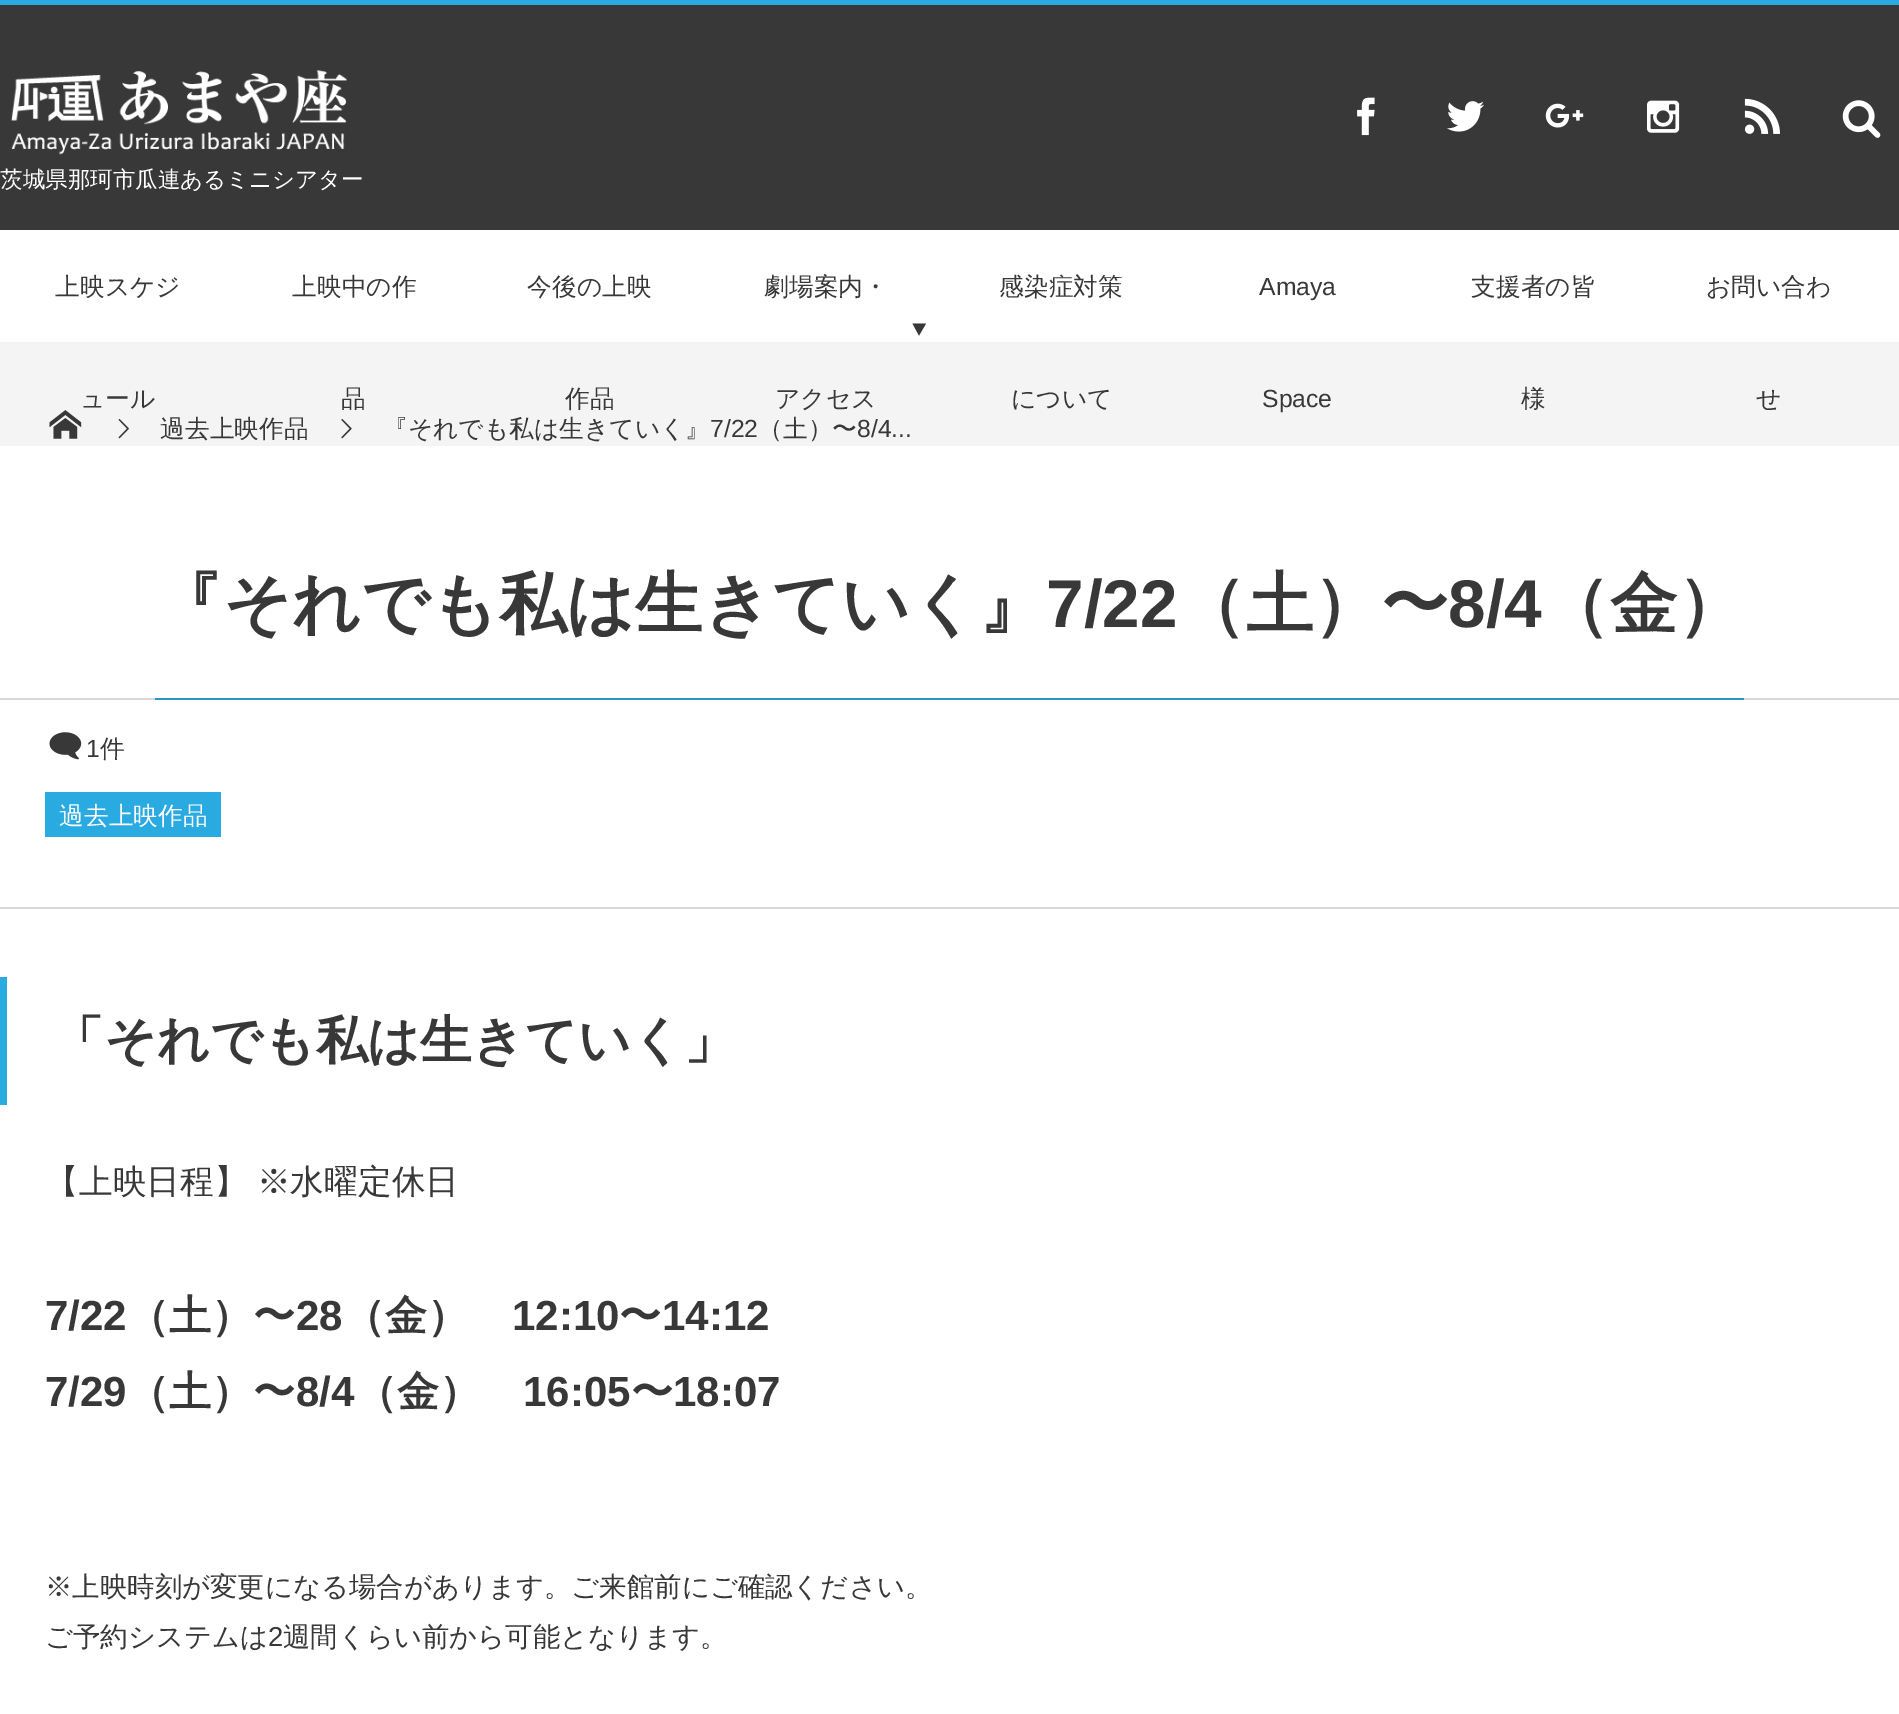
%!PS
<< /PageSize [1899 1714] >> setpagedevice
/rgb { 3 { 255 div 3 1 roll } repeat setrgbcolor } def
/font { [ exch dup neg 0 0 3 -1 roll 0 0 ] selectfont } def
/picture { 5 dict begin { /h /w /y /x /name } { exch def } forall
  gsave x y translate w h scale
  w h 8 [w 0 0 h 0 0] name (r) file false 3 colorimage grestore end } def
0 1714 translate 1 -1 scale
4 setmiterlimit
56 56 56 rgb
0 0 1899 1714 rectfill
41 171 226 rgb
0 0 1899 5 rectfill
(img/1.rgb) 1357 97 18 39 picture
(img/2.rgb) 1447 101 37 31 picture
(img/3.rgb) 1545 103 39 25 picture
(img/4.rgb) 1647 100 33 33 picture
(img/5.rgb) 1744 98 36 36 picture
(img/6.rgb) 1842 100 39 38 picture
(img/7.rgb) 11 70 336 85 picture
255 255 255 rgb
0 230 1899 112 rectfill
56 56 56 rgb
926 323.5 moveto 912.5 323.5 lineto 919 335.5 lineto closepath fill
244 244 244 rgb
0 342 1899 104 rectfill
(img/8.rgb) 49 410 33 29 picture
(img/9.rgb) 118 419 11 20 picture
(img/10.rgb) 341 419 11 20 picture
[
  [0 446 1899 1268 255 255 255]
  [0 698 1899 2 215 215 215]
  [155 698 1589 2 44 148 192]
] { aload pop rgb rectfill } forall
(img/11.rgb) 49 732 33 28 picture
[
  [45 792 176 45 41 171 226]
  [0 907 1899 2 215 215 215]
  [0 977 7 128 41 171 226]
] { aload pop rgb rectfill } forall
/WenQuanYiZenHei-Medium 22.5 font
255 255 255 rgb
0 187 moveto (茨城県那珂市瓜連あるミニシアター) show
/WenQuanYiZenHei-Medium 24.75 font
56 56 56 rgb
[
  [(上映スケジ) 55 295]
  [(ュール) 80 407]
  [(上映中の作) 292 295]
  [(品) 341 407]
  [(今後の上映) 527 295]
  [(作品) 565 407]
  [(劇場案内・) 764 295]
  [(アクセス) 775 407]
  [(感染症対策) 999 295]
  [(について) 1011 407]
] { aload pop moveto show } forall
/LiberationSans-Regular 24.75 font
1259 295 moveto (Amaya) show
1262 407 moveto (Space) show
/WenQuanYiZenHei-Medium 24.75 font
[
  [(支援者の皆) 1471 295]
  [(様) 1521 407]
  [(お問い合わ) 1706 295]
  [(せ) 1756 407]
  [(過去上映作品) 160 437]
  [(『それでも私は生きていく』) 383 437]
] { aload pop moveto show } forall
/LiberationSans-Regular 24.75 font
710 437 moveto (7/22) show
/WenQuanYiZenHei-Medium 24.75 font
758 437 moveto (（土）〜) show
/LiberationSans-Regular 24.75 font
857 437 moveto (8/4...) show
/WenQuanYiZenHei-Bold 67.5 font
155 627 moveto (『それでも私は生きていく』) show
/LiberationSans-Bold 67.5 font
1046 627 moveto (7/22) show
/WenQuanYiZenHei-Bold 67.5 font
1178 627 moveto (（土）〜) show
/LiberationSans-Bold 67.5 font
1448 627 moveto (8/4) show
/WenQuanYiZenHei-Bold 67.5 font
1542 627 moveto (（金）) show
/LiberationSans-Regular 24.75 font
86 757 moveto (1) show
/WenQuanYiZenHei-Medium 24.75 font
100 757 moveto (件) show
255 255 255 rgb
59 824 moveto (過去上映作品) show
/WenQuanYiZenHei-Bold 51.75 font
56 56 56 rgb
52 1058 moveto (「それでも私は生きていく」) show
/WenQuanYiZenHei-Medium 33.75 font
45 1193 moveto -1 0 32 (【上映日程】 ※水曜定休日) widthshow
/LiberationSans-Bold 42 font
45 1330 moveto (7/22) show
/WenQuanYiZenHei-Bold 42 font
127 1330 moveto (（土）〜) show
/LiberationSans-Bold 42 font
296 1330 moveto (28) show
/WenQuanYiZenHei-Bold 42 font
343 1330 moveto (（金）) show
/LiberationSans-Bold 42 font
512 1330 moveto (12:10) show
/WenQuanYiZenHei-Bold 42 font
619 1330 moveto (〜) show
/LiberationSans-Bold 42 font
662 1330 moveto (14:12) show
45 1406 moveto (7/29) show
/WenQuanYiZenHei-Bold 42 font
127 1406 moveto (（土）〜) show
/LiberationSans-Bold 42 font
296 1406 moveto (8/4) show
/WenQuanYiZenHei-Bold 42 font
355 1406 moveto (（金）) show
/LiberationSans-Bold 42 font
523 1406 moveto (16:05) show
/WenQuanYiZenHei-Bold 42 font
631 1406 moveto (〜) show
/LiberationSans-Bold 42 font
673 1406 moveto (18:07) show
/WenQuanYiZenHei-Medium 27.4 font
45 1596 moveto (※上映時刻が変更になる場合があります。ご来館前にご確認ください。) show
45 1646 moveto (ご予約システムは) show
/LiberationSans-Regular 27.4 font
268 1646 moveto (2) show
/WenQuanYiZenHei-Medium 27.4 font
283 1646 moveto (週間くらい前から可能となります。) show
showpage
